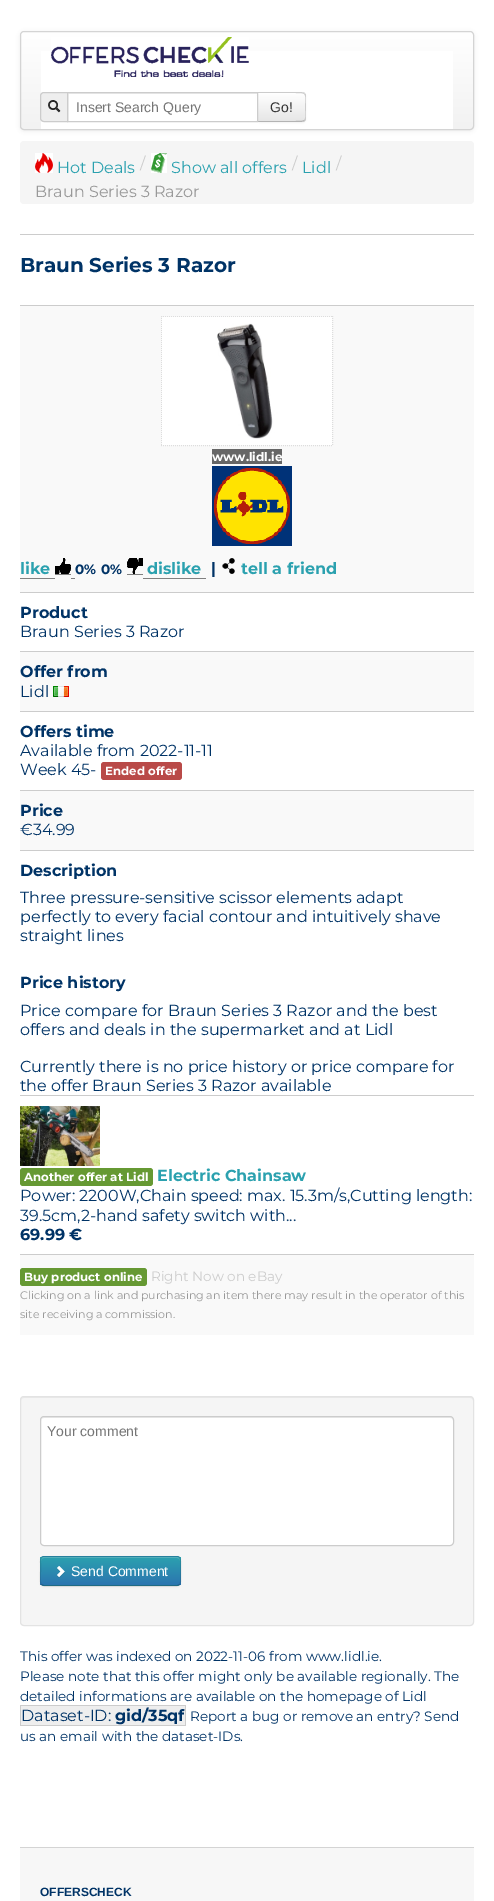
%!PS
<< /PageSize [494 1901] /PageUsesTransparency true >> setpagedevice
/rgb { 3 { 255 div 3 1 roll } repeat setrgbcolor } def
/font { [ exch dup neg 0 0 3 -1 roll 0 0 ] selectfont } def
/alpha { dup .setfillconstantalpha .setstrokeconstantalpha } def
/roundrect { 5 dict begin { /r /h /w /y /x } { exch def } forall
  x r add y moveto x w add y 2 copy h add r arct x w add y h add x 1 index r arct
  x y h add x y r arct x y 2 copy exch w add exch r arct closepath end } def
/shadow { 12 dict begin { /a /b /q /h /w /y /x } { exch def } forall gsave /was 0 def
  9 -2 -9 { dup b mul 4 div /e exch def 1 sub .425 mul 2.718 exch exp 1 add a .99 .min exch div /now exch def
    1 1 now sub 1 was sub div sub alpha /was now def
    w h .min e 2 mul add 0 gt { x e sub y e sub w e 2 mul add h e 2 mul add
      q e add b .6 mul add w h .min 2 div e add .min 0 .max roundrect fill } if } for grestore end } def
/picture { 5 dict begin { /h /w /y /x /name } { exch def } forall
  gsave x y translate w h scale
  w h 8 [w 0 0 h 0 0] name (r) file false 3 colorimage grestore end } def
0 .pushpdf14devicefilter
0 1901 translate 1 -1 scale
4 setmiterlimit
255 255 255 rgb
0 0 494 1901 rectfill
0 0 0 rgb
20 32 454 99 4 2 0.07 shadow
gsave
20 31 454 99 4 roundrect clip newpath
gsave 20 32 moveto 474 32 lineto 474 129 lineto 20 129 lineto closepath clip newpath
<< /ShadingType 2 /ColorSpace /DeviceRGB /Coords [247 32 247 129] /Extend [true true] /Function << /FunctionType 2 /Domain [0 1] /C0 [1 1 1] /C1 [0.949 0.949 0.949] /N 1 >> >> shfill grestore
grestore
212 212 212 rgb
20.5 31.5 453 98 3.5 roundrect stroke
255 255 255 rgb
41 51 412 78 rectfill
(img/1.rgb) 51 37 198 40 picture
238 238 238 rgb
44 92.5 moveto 67.5 92.5 lineto 67.5 121.5 lineto 44 121.5 lineto 42 121.5 40.5 120 40.5 118 curveto 40.5 96 lineto 40.5 94 42 92.5 44 92.5 curveto closepath gsave fill grestore
204 204 204 rgb
stroke
(img/2.rgb) 48 100 13 13 picture
0 0 0 rgb
257 93 49 30 4 1 0.05 shadow
255 255 255 rgb
256 96 1 24 rectfill
236 236 236 rgb
68 93 189 1 rectfill
245 245 245 rgb
257 92 moveto 302 92 lineto 304 92 306 94 306 96 curveto 306 118 lineto 306 120 304 122 302 122 curveto 257 122 lineto closepath fill
gsave
257 92 moveto 302 92 lineto 304 92 306 94 306 96 curveto 306 118 lineto 306 120 304 122 302 122 curveto 257 122 lineto closepath clip newpath
gsave 258 93 moveto 306 93 lineto 306 121 lineto 258 121 lineto closepath clip newpath
<< /ShadingType 2 /ColorSpace /DeviceRGB /Coords [282 93 282 121] /Extend [true true] /Function << /FunctionType 2 /Domain [0 1] /C0 [1 1 1] /C1 [0.902 0.902 0.902] /N 1 >> >> shfill grestore
grestore
204 204 204 rgb
257 92 moveto 258 93 lineto 295 93 lineto 300 93 303 93 304 94 curveto 305 93 lineto 303 92 300 92 294 92 curveto closepath fill
306 119 moveto 306 119.5 305.5 120.5 304.5 120.5 curveto 304 120 lineto 306.5 118.5 305 109.5 305 107 curveto 305 104.5 306.5 95.5 304 94 curveto 304.5 93.5 lineto 305.5 93.5 306 94.5 306 95 curveto closepath fill
179 179 179 rgb
294 122 moveto 300 122 303 122 305 121 curveto 304 120 lineto 303 121 300 121 295 121 curveto 258 121 lineto 257 122 lineto closepath fill
204 204 204 rgb
67.5 92.5 190 29 rectstroke
245 245 245 rgb
20 141 454 63 4 roundrect fill
(img/3.rgb) 35 153 18 20 picture
(img/4.rgb) 151 153 16 20 picture
[
  [20 234 454 1 204 204 204]
  [20 306 454 286 249 249 249]
  [20 305 454 1 204 204 204]
] { aload pop rgb rectfill } forall
221 221 221 rgb
[1 1] 0 setdash
161 316.5 moveto 333 316.5 lineto stroke
161.5 316 moveto 161.5 446 lineto stroke
(img/5.rgb) 162 317 170 128 picture
332.5 316 moveto 332.5 446 lineto stroke
161 445.5 moveto 333 445.5 lineto stroke
102 102 102 rgb
212 449 70 15 rectfill
(img/6.rgb) 212 466 80 80 picture
[
  [20 578 35 1 128 128 128]
  [55 574 16 1 128 128 128]
  [71 578 4 1 128 128 128]
] { aload pop rgb rectfill } forall
(img/7.rgb) 55 558 16 16 picture
127 574 16 1 rectfill
143 578 63 1 rectfill
(img/8.rgb) 127 558 16 16 picture
(img/9.rgb) 222 558 13 16 picture
[
  [20 592 454 1 204 204 204]
  [20 652 454 59 249 249 249]
  [20 651 454 1 204 204 204]
] { aload pop rgb rectfill } forall
(img/10.rgb) 53 686 16 11 picture
20 711 454 1 rectfill
185 74 72 rgb
101 762 81 18 3 roundrect fill
[
  [20 791 454 59 249 249 249]
  [20 790 454 1 204 204 204]
  [20 850 454 1 204 204 204]
  [20 1095 454 1 204 204 204]
] { aload pop rgb rectfill } forall
(img/11.rgb) 20 1106 80 60 picture
102 153 51 rgb
20 1168 133 18 3 roundrect fill
249 249 249 rgb
20 1255 454 80 rectfill
204 204 204 rgb
20 1254 454 1 rectfill
102 153 51 rgb
20 1268 127 18 3 roundrect fill
245 245 245 rgb
20 1396 454 230 4 roundrect fill
233 233 233 rgb
24 1398 moveto 470 1398 lineto 472 1398 473 1399 473 1401 curveto 473 1399 473 1398 471 1397 curveto 23 1397 lineto 21 1399 lineto 21 1401 lineto 21 1399 22 1398 24 1398 curveto closepath fill
227 227 227 rgb
[] 0 setdash
20.5 1396.5 453 229 3.5 roundrect stroke
255 255 255 rgb
40 1416 414 130 4 roundrect fill
236 236 236 rgb
44 1418 moveto 450 1418 lineto 452 1418 453 1419 453 1421 curveto 453 1419 452 1417 450 1417 curveto 44 1417 lineto 42 1417 41 1419 41 1421 curveto 41 1419 42 1418 44 1418 curveto closepath fill
204 204 204 rgb
40.5 1416.5 413 129 3.5 roundrect stroke
0 0 0 rgb
40 1557 141 30 4 1 0.05 shadow
43 143 175 rgb
40 1556 141 30 4 roundrect fill
gsave
40 1556 141 30 4 roundrect clip newpath
gsave 40 1557 moveto 181 1557 lineto 181 1585 lineto 40 1585 lineto closepath clip newpath
<< /ShadingType 2 /ColorSpace /DeviceRGB /Coords [111 1557 111 1585] /Extend [true true] /Function << /FunctionType 2 /Domain [0 1] /C0 [0.169 0.631 0.686] /C1 [0.169 0.459 0.686] /N 1 >> >> shfill grestore
grestore
85 179 191 rgb
44 1558 moveto 177 1558 lineto 179 1558 180 1559 180 1561 curveto 180 1559 179 1557 177 1557 curveto 44 1557 lineto 42 1557 41 1559 41 1561 curveto 41 1559 42 1558 44 1558 curveto closepath fill
0.25 alpha
0 0 0 rgb
179.5 1584.5 moveto 179 1585 178 1585.5 177 1585.5 curveto 44 1585.5 lineto 43 1585.5 42 1585 41.5 1584.5 curveto stroke
0.1 alpha
41.5 1584.5 moveto 39.5 1582.5 40.5 1574 40.5 1571 curveto 40.5 1563.5 lineto 40.5 1561 40 1556.5 44 1556.5 curveto 177 1556.5 lineto 181 1556.5 180.5 1561 180.5 1563.5 curveto 180.5 1571 lineto 180.5 1574 181.5 1582.5 179.5 1584.5 curveto stroke
1 alpha
(img/12.rgb) 57 1566 8 12 picture
[
  [21 1706 164 19 238 238 238]
  [20 1705 166 1 204 204 204]
  [20 1725 95 1 204 204 204]
  [20 1705 1 21 204 204 204]
  [185 1705 1 21 204 204 204]
  [115 1725 71 1 204 204 204]
] { aload pop rgb rectfill } forall
gsave 20 1848 moveto 474 1848 lineto 474 1901 lineto 20 1901 lineto closepath clip newpath
<< /ShadingType 2 /ColorSpace /DeviceRGB /Coords [247 1848 247 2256] /Extend [true true] /Function << /FunctionType 2 /Domain [0 1] /C0 [0.969 0.969 0.969] /C1 [1 1 1] /N 1 >> >> shfill grestore
212 212 212 rgb
20 1847 454 1 rectfill
/LiberationSans-Regular 14 font
117 117 117 rgb
76 112 moveto (Insert Search Query) show
51 51 51 rgb
270 112 moveto (Go!) show
/Montserrat-Regular 16 font
43 161 175 rgb
57 173 moveto (Hot Deals) show
204 204 204 rgb
140 169 moveto (/) show
43 161 175 rgb
171 173 moveto (Show all offers) show
204 204 204 rgb
292 169 moveto (/) show
43 161 175 rgb
302 173 moveto (Lidl) show
204 204 204 rgb
336 169 moveto (/) show
153 153 153 rgb
35 197 moveto (Braun Series 3 Razor) show
/Montserrat-Bold 20 font
0 51 102 rgb
20 272 moveto (Braun Series 3 Razor) show
/Montserrat-Bold 12 font
255 255 255 rgb
212 461 moveto (www.lidl.ie) show
/Montserrat-Bold 16 font
43 161 175 rgb
20 574 moveto (like) show
/Montserrat-Bold 13.6 font
0 51 102 rgb
75 574 moveto (0%) show
101 574 moveto (0%) show
/Montserrat-Bold 16 font
43 161 175 rgb
147 574 moveto (dislike) show
0 51 102 rgb
211 574 moveto (|) show
43 161 175 rgb
241 574 moveto (tell a friend) show
0 51 102 rgb
20 618 moveto (Product) show
/Montserrat-Regular 16 font
20 637 moveto (Braun Series 3 Razor) show
/Montserrat-Bold 16 font
20 677 moveto (Offer from) show
/Montserrat-Regular 16 font
20 697 moveto (Lidl) show
/Montserrat-Bold 16 font
20 737 moveto (Offers time) show
/Montserrat-Regular 16 font
20 756 moveto (Available from 2022-11-11) show
20 775 moveto (Week 45-) show
/Montserrat-Bold 11.75 font
255 255 255 rgb
105 775 moveto (Ended offer) show
/Montserrat-Bold 16 font
0 51 102 rgb
20 816 moveto (Price) show
/Montserrat-Regular 16 font
20 835 moveto (€34.99) show
/Montserrat-Bold 16 font
20 876 moveto (Description) show
/Montserrat-Regular 16 font
[
  [(Three pressure-sensitive scissor elements adapt) 20 903]
  [(perfectly to every facial contour and intuitively shave) 20 922]
  [(straight lines) 20 941]
] { aload pop moveto show } forall
/Montserrat-Bold 16 font
20 988 moveto (Price history) show
/Montserrat-Regular 16 font
[
  [(Price compare for Braun Series 3 Razor and the best) 20 1016]
  [(offers and deals in the supermarket and at Lidl) 20 1035]
  [(Currently there is no price history or price compare for) 20 1072]
  [(the offer Braun Series 3 Razor available) 20 1091]
] { aload pop moveto show } forall
/Montserrat-Bold 11.75 font
255 255 255 rgb
24 1181 moveto (Another offer at Lidl) show
/Montserrat-Bold 16 font
43 161 175 rgb
157 1181 moveto (Electric Chainsaw) show
/Montserrat-Regular 16 font
0 51 102 rgb
20 1201 moveto (Power: 2200W,Chain speed: max. 15.3m/s,Cutting length:) show
20 1221 moveto (39.5cm,2-hand safety switch with...) show
/Montserrat-Bold 16 font
20 1240 moveto (69.99 €) show
/Montserrat-Bold 11.75 font
255 255 255 rgb
24 1281 moveto (Buy product online) show
/Montserrat-Regular 13.6 font
204 204 204 rgb
151 1281 moveto (Right Now on eBay) show
/Montserrat-Regular 11 font
153 153 153 rgb
20 1299 moveto (Clicking on a link and purchasing an item there may result in the operator of this) show
20 1318 moveto (site receiving a commission.) show
/LiberationSans-Regular 14 font
117 117 117 rgb
47 1436 moveto (Your comment) show
255 255 255 rgb
71 1576 moveto (Send Comment) show
/Montserrat-Regular 13.6 font
0 51 102 rgb
[
  [(This offer was indexed on 2022-11-06 from www.lidl.ie.) 20 1661]
  [(Please note that this offer might only be available regionally. The) 20 1681]
  [(detailed informations are available on the homepage of Lidl) 20 1701]
] { aload pop moveto show } forall
/Montserrat-Regular 16 font
21 1721 moveto (Dataset-ID:) show
/Montserrat-Bold 16 font
115 1721 moveto (gid/35qf) show
/Montserrat-Regular 13.6 font
190 1721 moveto (Report a bug or remove an entry? Send) show
20 1741 moveto (us an email with the dataset-IDs.) show
/LiberationSans-Bold 12 font
40 1896 moveto (OFFERSCHECK) show
.poppdf14devicefilter showpage
